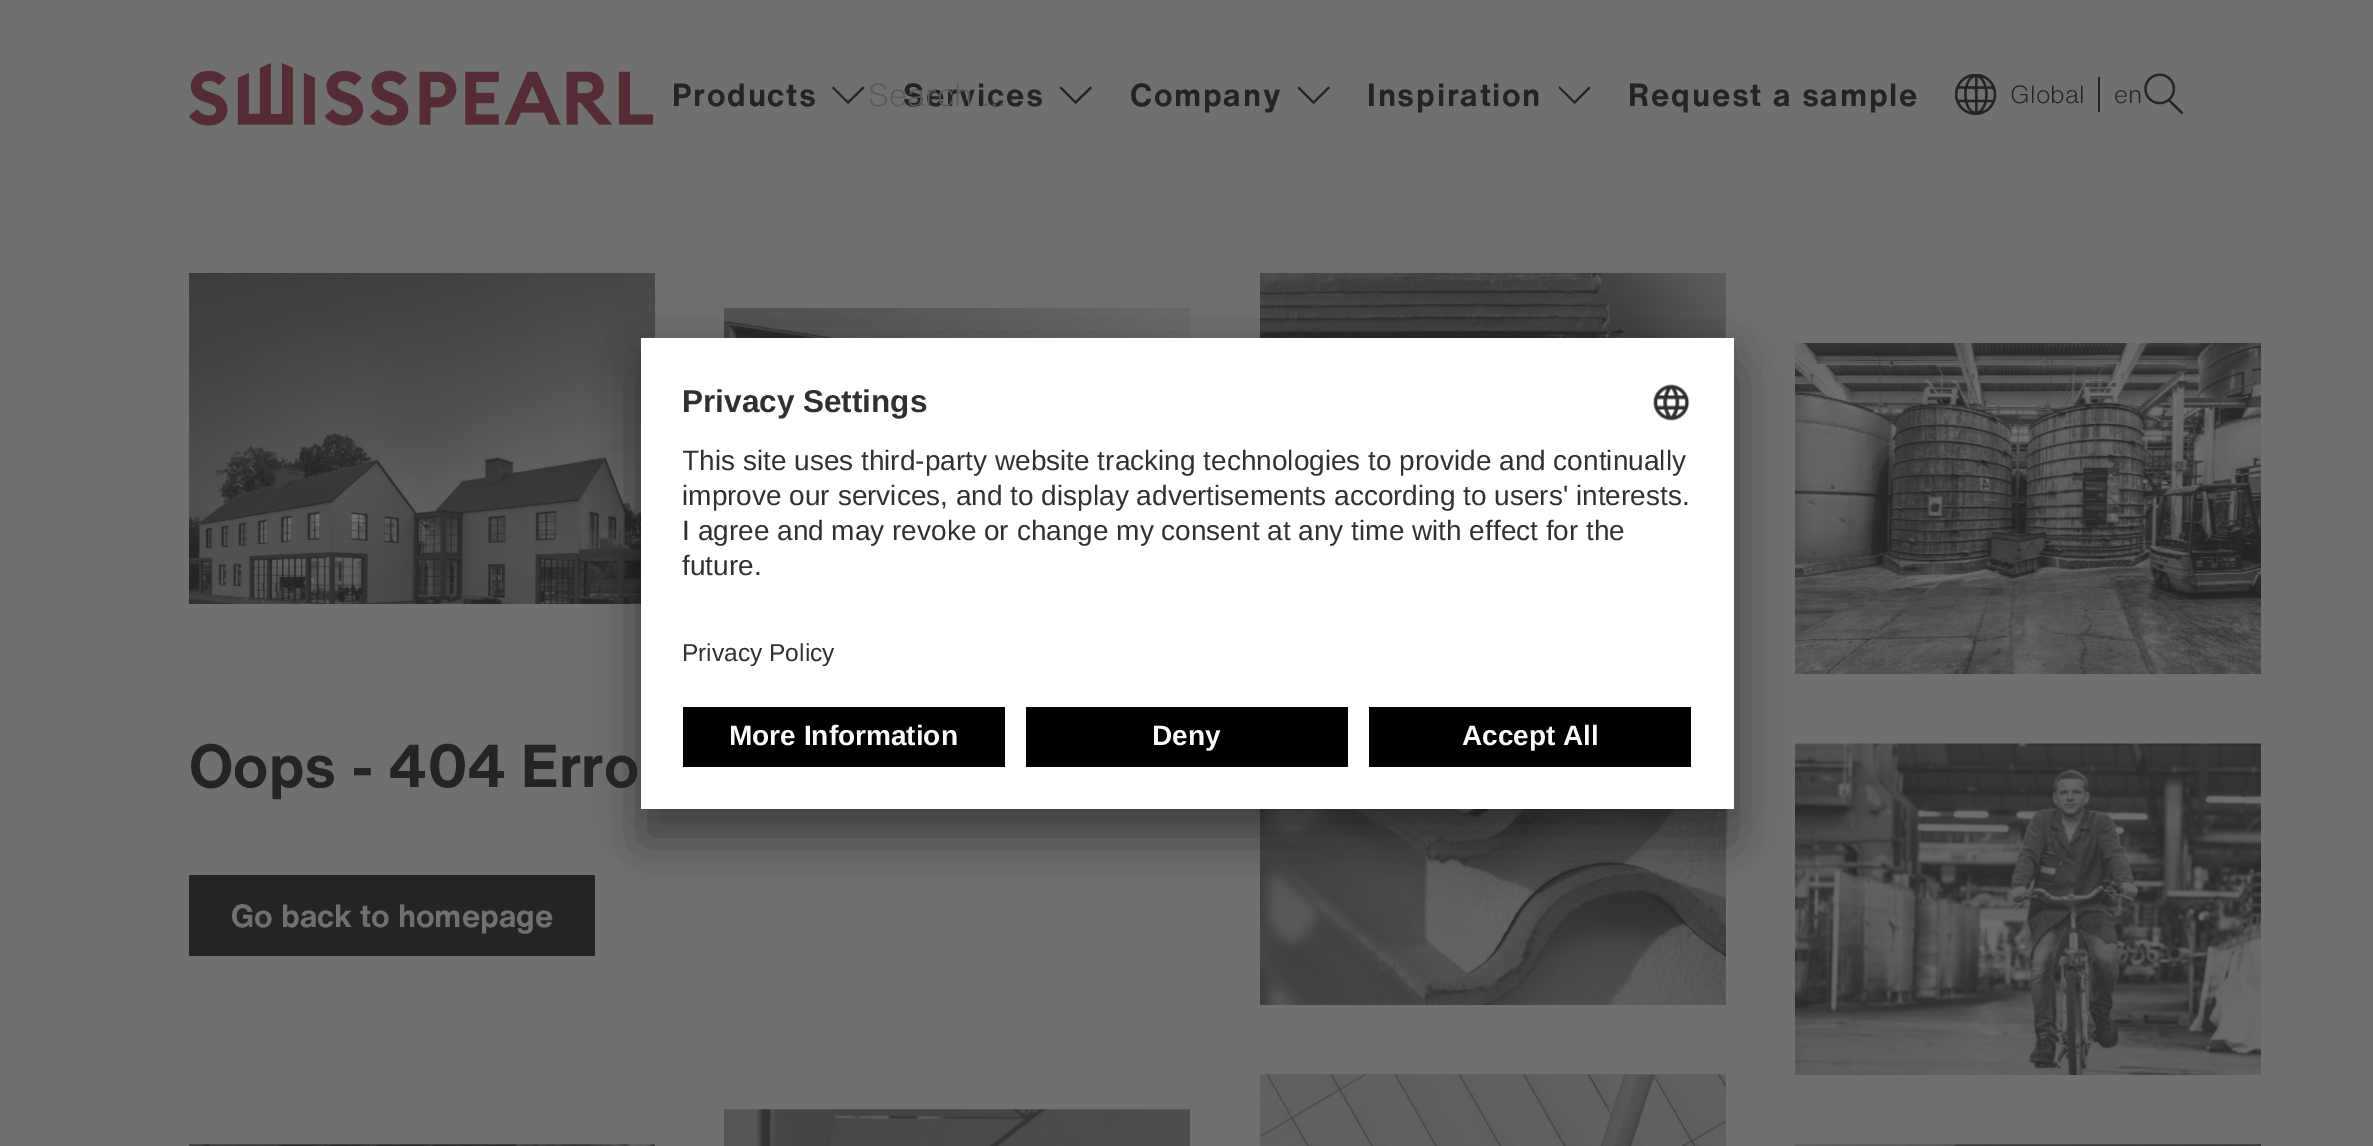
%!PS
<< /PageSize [2373 1146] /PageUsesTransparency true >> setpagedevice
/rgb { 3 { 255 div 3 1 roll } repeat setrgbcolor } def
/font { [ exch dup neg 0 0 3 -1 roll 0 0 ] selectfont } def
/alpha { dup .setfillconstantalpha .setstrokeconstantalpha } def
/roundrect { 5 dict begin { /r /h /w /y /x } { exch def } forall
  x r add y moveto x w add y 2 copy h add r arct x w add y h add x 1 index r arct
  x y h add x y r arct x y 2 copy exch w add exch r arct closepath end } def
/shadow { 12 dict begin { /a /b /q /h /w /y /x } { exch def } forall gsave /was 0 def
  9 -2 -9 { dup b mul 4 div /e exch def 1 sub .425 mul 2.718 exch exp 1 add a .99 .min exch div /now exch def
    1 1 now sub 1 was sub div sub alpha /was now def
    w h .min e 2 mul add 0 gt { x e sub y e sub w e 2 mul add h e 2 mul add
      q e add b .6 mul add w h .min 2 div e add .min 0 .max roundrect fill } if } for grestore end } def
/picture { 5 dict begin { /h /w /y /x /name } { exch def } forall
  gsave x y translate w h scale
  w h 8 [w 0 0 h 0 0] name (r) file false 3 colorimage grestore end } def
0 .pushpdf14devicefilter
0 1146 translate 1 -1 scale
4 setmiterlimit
112 112 112 rgb
0 0 2373 1146 rectfill
(img/1.rgb) 189 63 464 63 picture
36 36 36 rgb
863 86.5 moveto 864.5 88 lineto 848 104 lineto 832 88 lineto 833.5 86.5 lineto 848 101 lineto closepath fill
1090.5 86.5 moveto 1092 88 lineto 1075.5 104 lineto 1059.5 88 lineto 1061 86.5 lineto 1075.5 101 lineto closepath fill
1328.5 86.5 moveto 1330 88 lineto 1313.5 104 lineto 1297.5 88 lineto 1299 86.5 lineto 1313.5 101 lineto closepath fill
1589 86.5 moveto 1590.5 88 lineto 1574.5 104 lineto 1558.5 88 lineto 1559.5 86.5 lineto 1574.5 101 lineto closepath fill
(img/2.rgb) 2144 73 40 42 picture
(img/3.rgb) 1955 74 42 42 picture
2098 77 2 35 rectfill
(img/5.rgb) 189 273 466 331 picture
(img/6.rgb) 724 308 466 30 picture
(img/7.rgb) 1260 273 466 65 picture
(img/8.rgb) 1795 343 466 331 picture
189 875 406 81 rectfill
(img/9.rgb) 1260 809 466 196 picture
(img/10.rgb) 1795 743 466 332 picture
0 0 0 rgb
641 373 1093 471 0 24.5 0.3 shadow
641 347 1093 470 0 23 0.22 shadow
255 255 255 rgb
641 338 1093 471 rectfill
(img/4.rgb) 1653 384 37 37 picture
[
  [683 707 322 60 0 0 0]
  [1026 707 322 60 0 0 0]
  [1369 707 322 60 0 0 0]
] { aload pop rgb rectfill } forall
(img/11.rgb) 189 1144 466 2 picture
(img/12.rgb) 724 1109 466 37 picture
(img/13.rgb) 1260 1074 466 72 picture
(img/14.rgb) 1795 1144 466 2 picture
/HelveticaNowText-Bold 31.5 font
36 36 36 rgb
672 106 moveto 1.75 0 (Products) ashow
903 106 moveto 1.75 0 (Services) ashow
1130 106 moveto 1.75 0 (Company) ashow
1367 106 moveto 1.75 0 (Inspiration) ashow
1628 106 moveto 1.75 0 (Request a sample) ashow
/HelveticaNowText-Light 31.5 font
89 89 89 rgb
868 106 moveto (Search ...) show
/HelveticaNowText-Light 24.5 font
36 36 36 rgb
2010 103 moveto (Global) show
2114 103 moveto (en) show
/LiberationSans-Bold 31.5 font
48 48 48 rgb
682 412 moveto (Privacy Settings) show
gsave
683 438 1009 154 rectclip
/LiberationSans-Regular 28 font
682 470 moveto (This site uses third-party website tracking technologies to provide and continually) show
grestore
/LiberationSans-Regular 28 font
[
  [(improve our services, and to display advertisements according to users' interests.) 682 505]
  [(I agree and may revoke or change my consent at any time with effect for the) 682 540]
  [(future.) 682 575]
] { aload pop moveto show } forall
/LiberationSans-Regular 24.5 font
682 661 moveto (Privacy Policy) show
/LiberationSans-Bold 28 font
250 250 250 rgb
[
  [(More Information) 729 745]
  [(Deny) 1152 745]
  [(Accept All) 1462 745]
] { aload pop moveto show } forall
/HelveticaNowText-Bold 59.5 font
36 36 36 rgb
189 787 moveto (Oops - 404 Erro) show
/HelveticaNowText-Bold 31.5 font
112 112 112 rgb
231 927 moveto (Go back to homepage) show
.poppdf14devicefilter showpage
